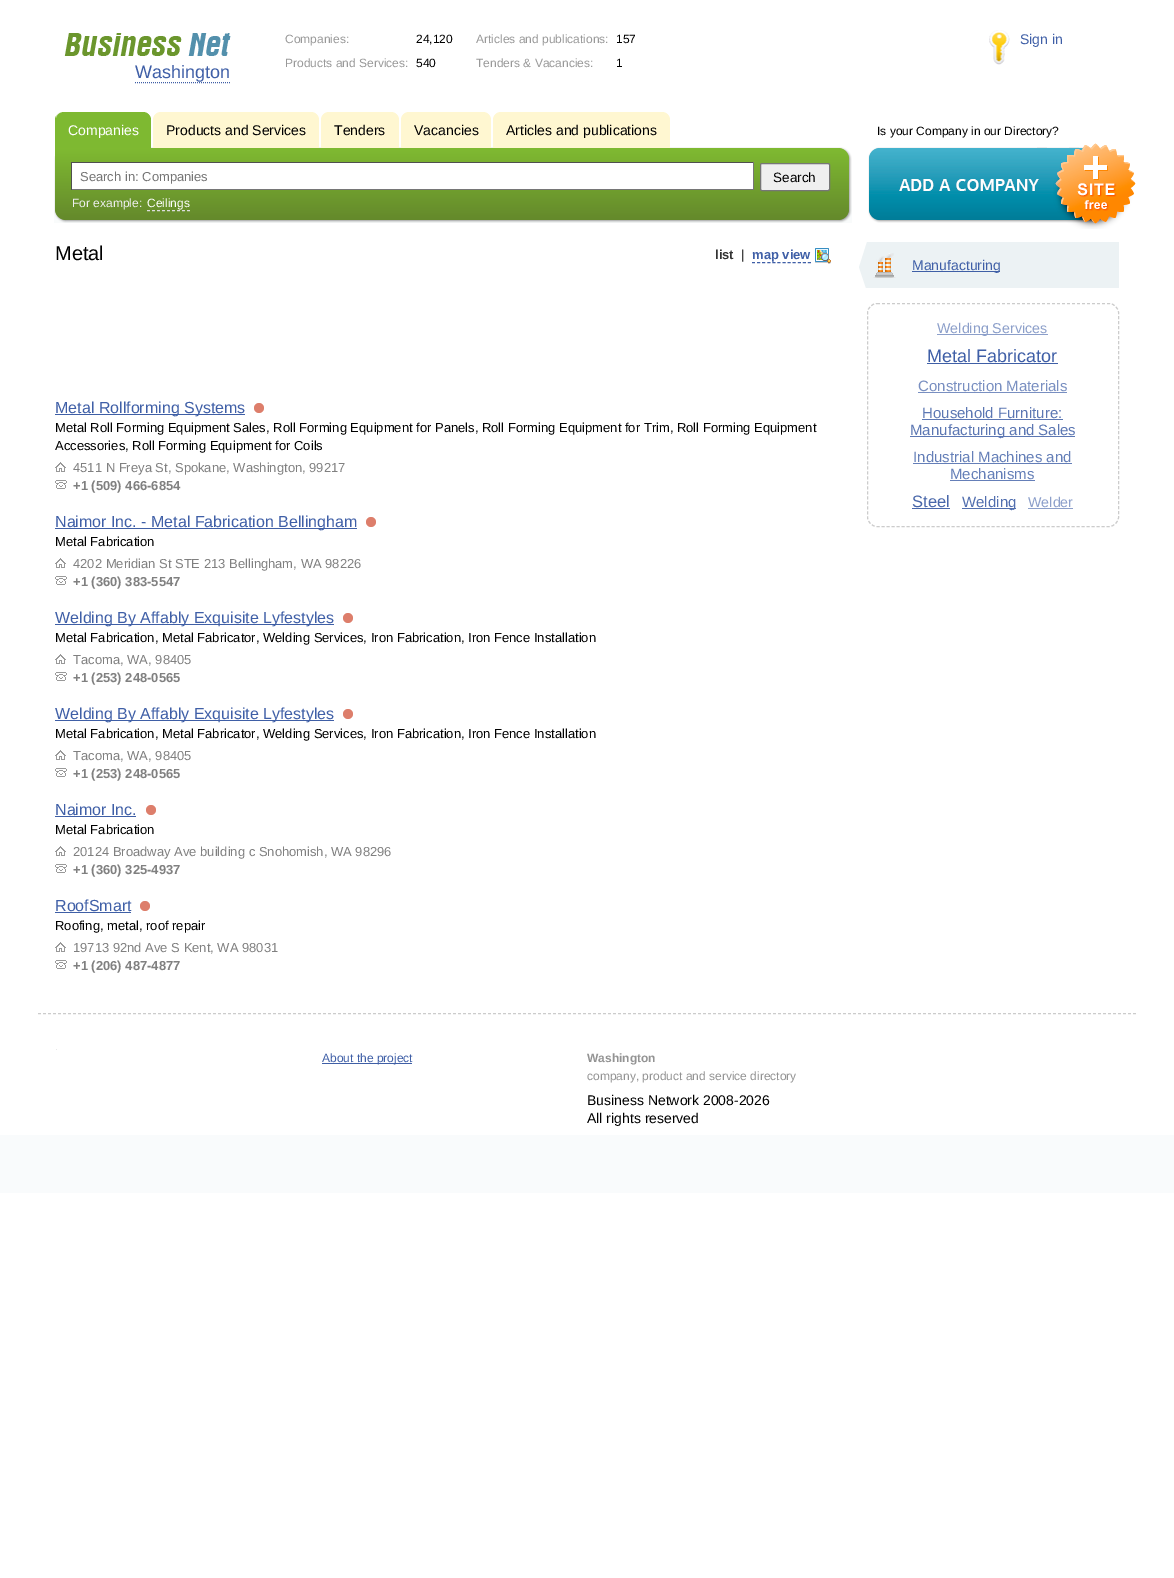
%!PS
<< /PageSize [1174 1578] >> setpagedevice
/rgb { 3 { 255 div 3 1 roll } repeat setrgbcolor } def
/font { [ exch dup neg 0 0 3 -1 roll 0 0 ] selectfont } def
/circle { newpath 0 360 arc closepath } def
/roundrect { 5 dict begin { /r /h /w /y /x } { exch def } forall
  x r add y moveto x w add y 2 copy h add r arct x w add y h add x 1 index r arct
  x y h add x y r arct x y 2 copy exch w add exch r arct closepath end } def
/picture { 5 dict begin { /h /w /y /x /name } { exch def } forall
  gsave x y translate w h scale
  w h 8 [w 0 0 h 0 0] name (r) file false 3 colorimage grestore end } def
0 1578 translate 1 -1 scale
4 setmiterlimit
255 255 255 rgb
0 0 1174 1578 rectfill
(img/1.rgb) 989 30 21 35 picture
63 95 166 rgb
[1 1] 0 setdash
135 82.5 moveto 231 82.5 lineto stroke
(img/7.rgb) 55 147 785 76 picture
126 185 49 rgb
55 112 96 36 rectfill
(img/3.rgb) 145 112 6 6 picture
(img/4.rgb) 55 112 7 6 picture
255 247 209 rgb
153 112 166 36 rectfill
(img/5.rgb) 313 112 6 6 picture
(img/6.rgb) 153 112 6 6 picture
321 112 78 36 rectfill
(img/5.rgb) 393 112 6 6 picture
(img/6.rgb) 321 112 6 6 picture
401 112 90 36 rectfill
(img/5.rgb) 485 112 6 6 picture
(img/6.rgb) 401 112 6 6 picture
493 112 177 36 rectfill
(img/5.rgb) 664 112 6 6 picture
(img/6.rgb) 493 112 6 6 picture
(img/8.rgb) 54 156 11 67 picture
[
  [72 163 681 26 255 255 255]
  [71 162 683 1 79 79 79]
  [753 162 1 28 118 118 118]
  [71 189 683 1 118 118 118]
  [71 162 1 28 79 79 79]
] { aload pop rgb rectfill } forall
239 239 239 rgb
760.5 163.5 69 27 1.5 roundrect gsave fill grestore
118 118 118 rgb
[] 0 setdash
stroke
(img/9.rgb) 840 147 12 76 picture
221 221 221 rgb
[3 2] 0 setdash
147 210.5 moveto 190 210.5 lineto stroke
(img/10.rgb) 868 143 268 86 picture
63 95 167 rgb
[3 2.09] 0 setdash
752 262.5 moveto 811 262.5 lineto stroke
(img/11.rgb) 815 248 16 16 picture
63 95 166 rgb
55 414 190 1 rectfill
221 126 107 rgb
259 408 5 circle fill
(img/12.rgb) 55 462 11 10 picture
(img/13.rgb) 55 480 12 9 picture
63 95 166 rgb
55 528 302 1 rectfill
221 126 107 rgb
371 522 5 circle fill
(img/12.rgb) 55 558 11 10 picture
(img/13.rgb) 55 576 12 9 picture
63 95 166 rgb
55 624 279 1 rectfill
221 126 107 rgb
348 618 5 circle fill
(img/12.rgb) 55 654 11 10 picture
(img/13.rgb) 55 672 12 9 picture
63 95 166 rgb
55 720 279 1 rectfill
221 126 107 rgb
348 714 5 circle fill
(img/12.rgb) 55 750 11 10 picture
(img/13.rgb) 55 768 12 9 picture
63 95 166 rgb
55 816 81 1 rectfill
221 126 107 rgb
151 810 5 circle fill
(img/12.rgb) 55 846 11 10 picture
(img/13.rgb) 55 864 12 9 picture
63 95 166 rgb
55 912 76 1 rectfill
221 126 107 rgb
145 906 5 circle fill
(img/12.rgb) 55 942 11 10 picture
(img/13.rgb) 55 960 12 9 picture
236 242 244 rgb
867 242 252 46 rectfill
(img/14.rgb) 859 242 8 46 picture
(img/15.rgb) 873 253 23 25 picture
63 95 166 rgb
912 271 88 1 rectfill
204 204 204 rgb
[3 2] 0 setdash
877 303.5 moveto 1109 303.5 lineto 1114 303.5 1118.5 308 1118.5 313 curveto 1118.5 517 lineto 1118.5 522 1114 526.5 1109 526.5 curveto 877 526.5 lineto 872 526.5 867.5 522 867.5 517 curveto 867.5 313 lineto 867.5 308 872 303.5 877 303.5 curveto closepath stroke
[
  [937 334 111 1 140 159 202]
  [927 363 131 1 63 95 166]
  [918 392 149 1 121 143 193]
  [922 419 141 1 92 119 179]
  [910 436 165 1 92 119 179]
  [913 463 159 1 101 127 184]
  [950 480 85 1 101 127 184]
  [912 508 38 1 73 103 170]
  [962 508 54 1 82 111 175]
  [1028 508 45 1 140 159 202]
  [0 1135 1174 58 249 251 252]
] { aload pop rgb rectfill } forall
204 204 204 rgb
38 1013.5 moveto 1137 1013.5 lineto stroke
232 232 232 rgb
56 1049 1 1 rectfill
63 95 166 rgb
322 1063 90 1 rectfill
/LiberationSans-Regular 12 font
153 153 153 rgb
285 43 moveto (Companies:) show
0 0 0 rgb
416 43 moveto (24,120) show
153 153 153 rgb
285 67 moveto (Products and Services:) show
0 0 0 rgb
416 67 moveto (540) show
153 153 153 rgb
476 43 moveto (Articles and publications:) show
0 0 0 rgb
616 43 moveto (157) show
153 153 153 rgb
476 67 moveto (Tenders & Vacancies:) show
0 0 0 rgb
616 67 moveto (1) show
/LiberationSans-Regular 14 font
63 95 167 rgb
1020 44 moveto (Sign in) show
/LiberationSans-Regular 18 font
135 78 moveto (Washington) show
(img/2.rgb) 64 33 167 32 picture
/LiberationSans-Regular 14 font
255 255 255 rgb
68 135 moveto (Companies) show
0 0 0 rgb
[
  [(Products and Services) 166 135]
  [(Tenders) 334 135]
  [(Vacancies) 414 135]
  [(Articles and publications) 506 135]
] { aload pop moveto show } forall
/LiberationSans-Regular 13 font
117 117 117 rgb
80 181 moveto (Search in: Companies) show
/LiberationSans-Regular 13.5 font
0 0 0 rgb
773 182 moveto (Search) show
/LiberationSans-Regular 12 font
238 238 238 rgb
72 207 moveto (For example:) show
255 255 255 rgb
147 207 moveto (Ceilings) show
0 0 0 rgb
877 135 moveto (Is your Company in our Directory?) show
/LiberationSans-Regular 20 font
55 260 moveto (Metal) show
/LiberationSans-Bold 13 font
51 51 51 rgb
715 259 moveto (list) show
/LiberationSans-Regular 13 font
0 0 0 rgb
741 259 moveto (|) show
/LiberationSans-Bold 13 font
63 95 167 rgb
752 259 moveto (map view) show
/LiberationSans-Regular 16 font
55 413 moveto (Metal Rollforming Systems) show
/LiberationSans-Regular 13 font
0 0 0 rgb
55 432 moveto (Metal Roll Forming Equipment Sales, Roll Forming Equipment for Panels, Roll Forming Equipment for Trim, Roll Forming Equipment) show
55 450 moveto (Accessories, Roll Forming Equipment for Coils) show
128 128 128 rgb
73 472 moveto (4511 N Freya St, Spokane, Washington, 99217) show
/LiberationSans-Bold 13 font
73 490 moveto (+1 \(509\) 466-6854) show
/LiberationSans-Regular 16 font
63 95 167 rgb
55 527 moveto (Naimor Inc. - Metal Fabrication Bellingham) show
/LiberationSans-Regular 13 font
0 0 0 rgb
55 546 moveto (Metal Fabrication) show
128 128 128 rgb
73 568 moveto (4202 Meridian St STE 213 Bellingham, WA 98226) show
/LiberationSans-Bold 13 font
73 586 moveto (+1 \(360\) 383-5547) show
/LiberationSans-Regular 16 font
63 95 167 rgb
55 623 moveto (Welding By Affably Exquisite Lyfestyles) show
/LiberationSans-Regular 13 font
0 0 0 rgb
55 642 moveto (Metal Fabrication, Metal Fabricator, Welding Services, Iron Fabrication, Iron Fence Installation) show
128 128 128 rgb
73 664 moveto (Tacoma, WA, 98405) show
/LiberationSans-Bold 13 font
73 682 moveto (+1 \(253\) 248-0565) show
/LiberationSans-Regular 16 font
63 95 167 rgb
55 719 moveto (Welding By Affably Exquisite Lyfestyles) show
/LiberationSans-Regular 13 font
0 0 0 rgb
55 738 moveto (Metal Fabrication, Metal Fabricator, Welding Services, Iron Fabrication, Iron Fence Installation) show
128 128 128 rgb
73 760 moveto (Tacoma, WA, 98405) show
/LiberationSans-Bold 13 font
73 778 moveto (+1 \(253\) 248-0565) show
/LiberationSans-Regular 16 font
63 95 167 rgb
55 815 moveto (Naimor Inc.) show
/LiberationSans-Regular 13 font
0 0 0 rgb
55 834 moveto (Metal Fabrication) show
128 128 128 rgb
73 856 moveto (20124 Broadway Ave building c Snohomish, WA 98296) show
/LiberationSans-Bold 13 font
73 874 moveto (+1 \(360\) 325-4937) show
/LiberationSans-Regular 16 font
63 95 167 rgb
55 911 moveto (RoofSmart) show
/LiberationSans-Regular 13 font
0 0 0 rgb
55 930 moveto (Roofing, metal, roof repair) show
128 128 128 rgb
73 952 moveto (19713 92nd Ave S Kent, WA 98031) show
/LiberationSans-Bold 13 font
73 970 moveto (+1 \(206\) 487-4877) show
/LiberationSans-Regular 14 font
63 95 167 rgb
912 270 moveto (Manufacturing) show
/LiberationSans-Regular 14.25 font
140 159 202 rgb
937 333 moveto (Welding Services) show
/LiberationSans-Regular 18 font
63 95 167 rgb
927 362 moveto (Metal Fabricator) show
/LiberationSans-Regular 15 font
121 143 193 rgb
918 391 moveto (Construction Materials) show
92 119 179 rgb
922 418 moveto (Household Furniture:) show
910 435 moveto (Manufacturing and Sales) show
101 127 184 rgb
913 462 moveto (Industrial Machines and) show
950 479 moveto (Mechanisms) show
/LiberationSans-Regular 16.5 font
73 103 170 rgb
912 507 moveto (Steel) show
/LiberationSans-Regular 15 font
82 111 175 rgb
962 507 moveto (Welding) show
/LiberationSans-Regular 14.25 font
140 159 202 rgb
1028 507 moveto (Welder) show
/LiberationSans-Regular 12 font
63 95 167 rgb
322 1062 moveto (About the project) show
/LiberationSans-Bold 12 font
147 147 147 rgb
587 1062 moveto (Washington) show
/LiberationSans-Regular 12 font
587 1080 moveto (company, product and service directory) show
/LiberationSans-Regular 14 font
0 0 0 rgb
587 1105 moveto (Business Network 2008-2026) show
587 1123 moveto (All rights reserved) show
showpage
